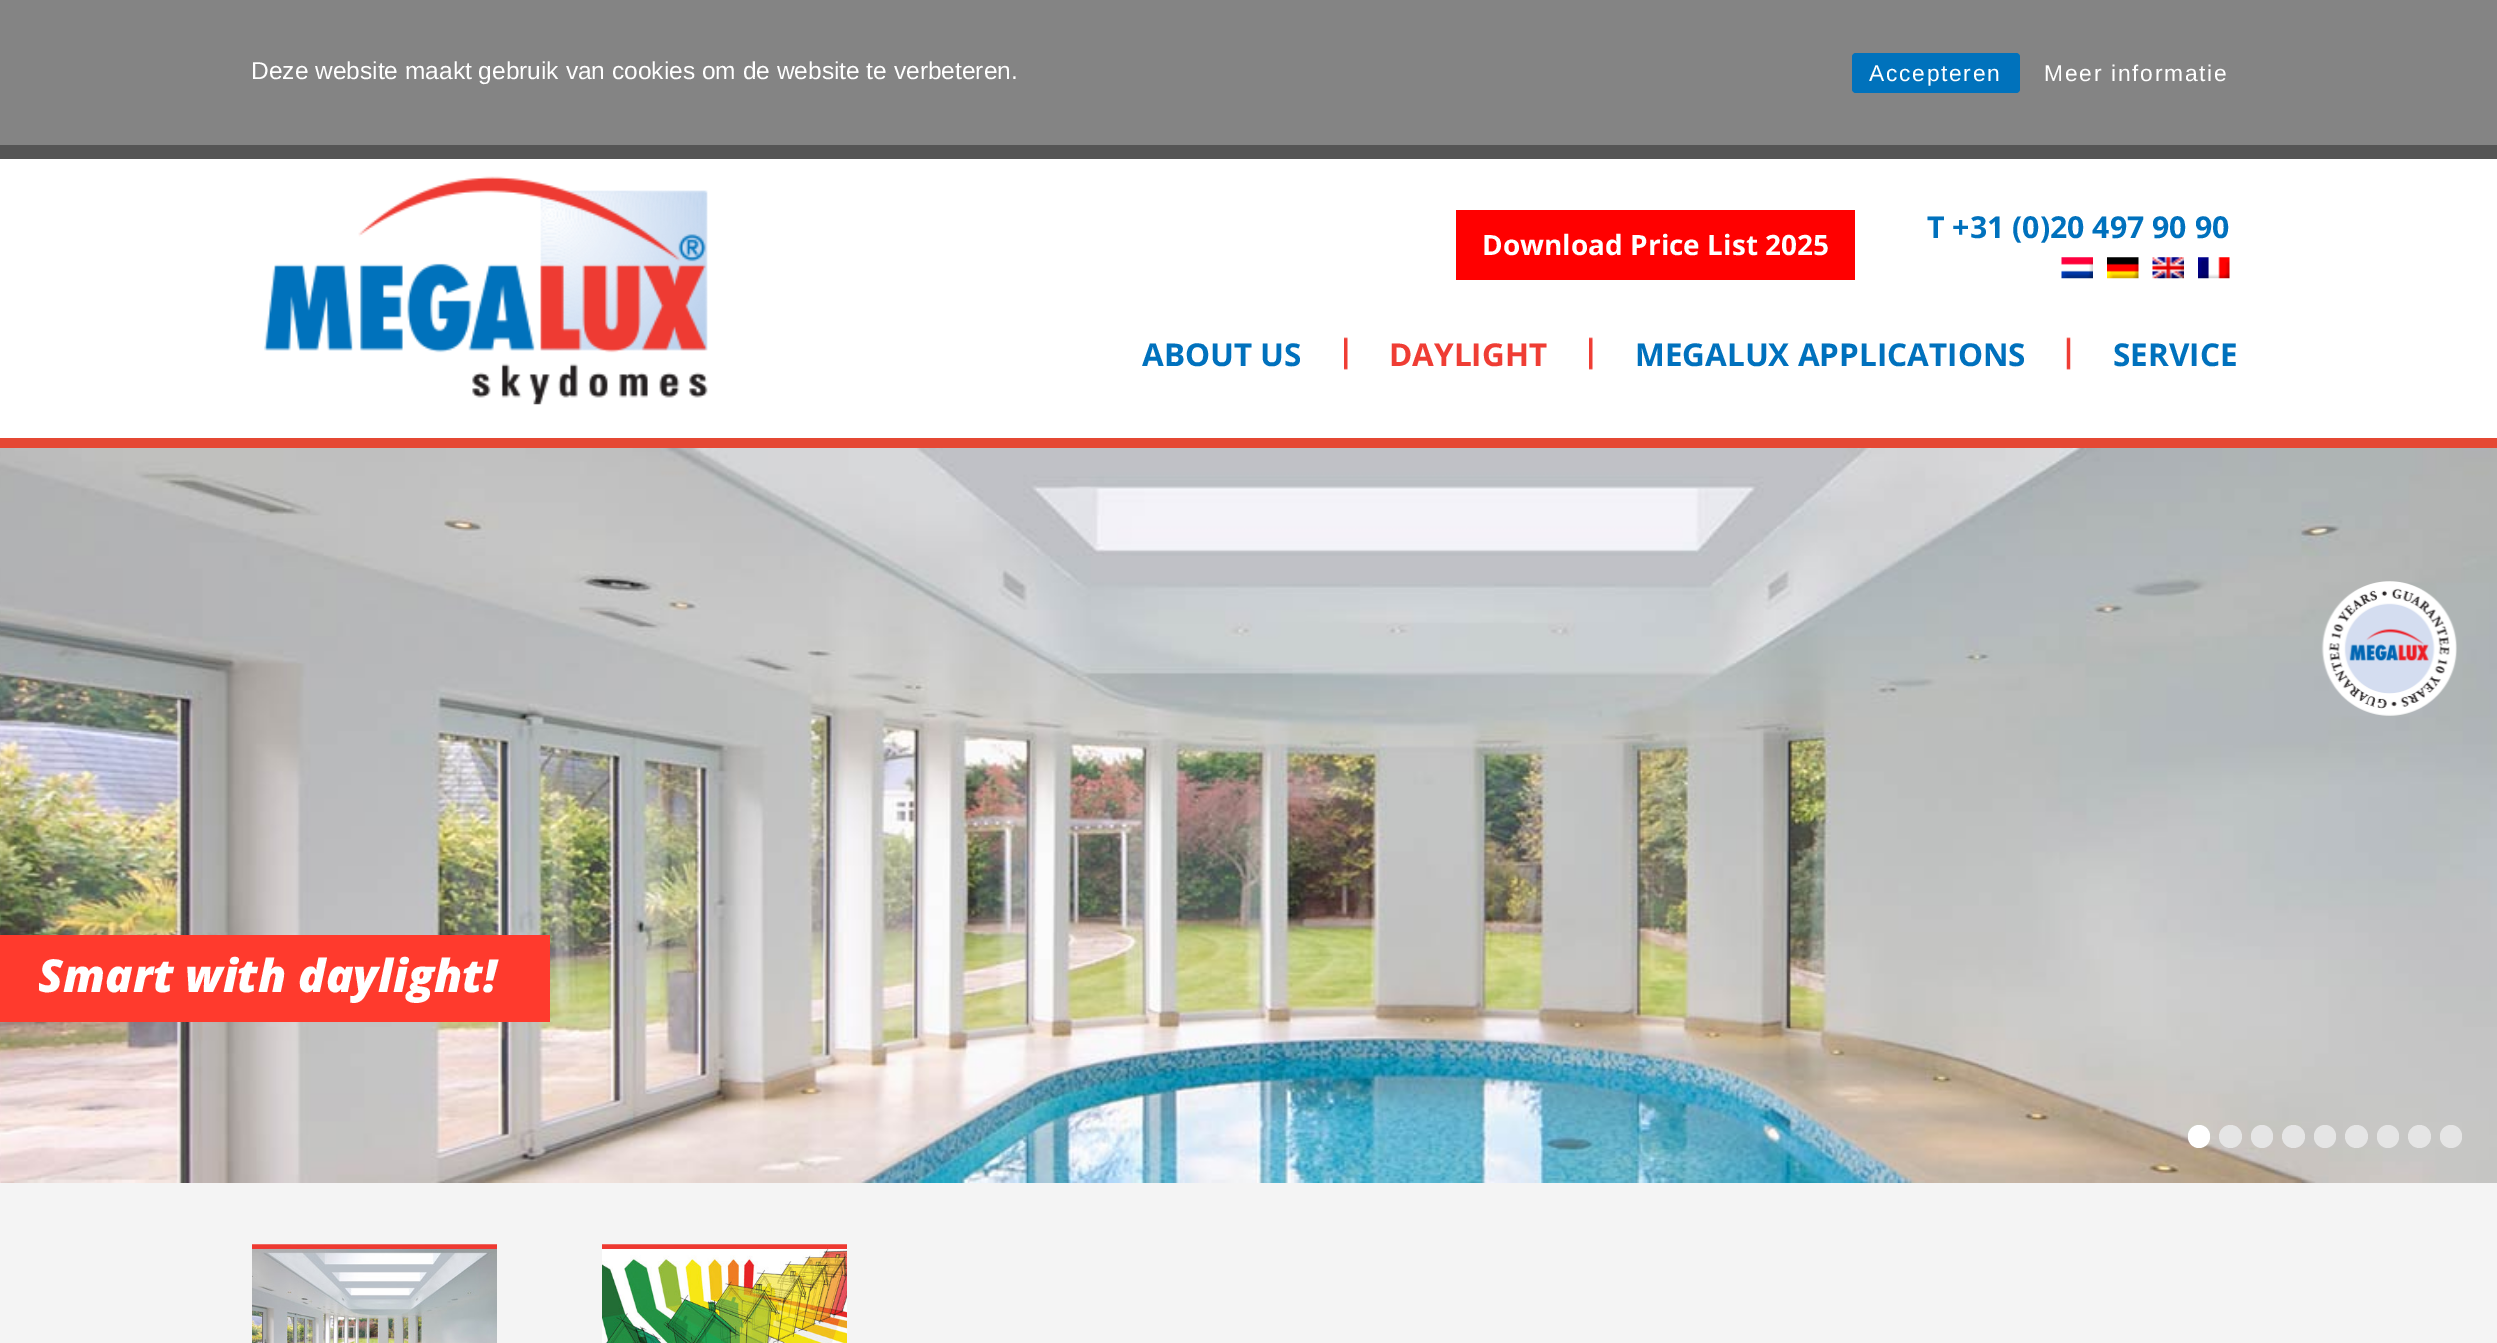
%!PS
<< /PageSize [2497 1343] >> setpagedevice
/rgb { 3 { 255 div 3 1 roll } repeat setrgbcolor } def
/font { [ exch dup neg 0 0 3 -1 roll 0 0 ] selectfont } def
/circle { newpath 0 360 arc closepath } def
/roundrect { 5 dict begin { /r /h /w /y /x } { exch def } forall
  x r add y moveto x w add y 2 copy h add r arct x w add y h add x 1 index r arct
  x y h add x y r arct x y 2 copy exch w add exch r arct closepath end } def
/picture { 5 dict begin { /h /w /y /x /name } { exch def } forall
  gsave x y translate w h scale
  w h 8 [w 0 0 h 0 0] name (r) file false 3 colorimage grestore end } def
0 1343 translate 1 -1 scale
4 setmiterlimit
255 255 255 rgb
0 0 2497 1343 rectfill
132 132 132 rgb
0 0 2497 145 rectfill
85 85 85 rgb
0 145 2497 14 rectfill
0 114 188 rgb
1852 53 168 40 4 roundrect fill
229 72 52 rgb
0 438 2497 10 rectfill
(img/1.rgb) 264 176 444 229 picture
255 0 0 rgb
1456 210 399 70 rectfill
(img/2.rgb) 2061 257 32 22 picture
(img/3.rgb) 2107 257 32 22 picture
(img/4.rgb) 2152 257 32 22 picture
(img/5.rgb) 2198 257 32 22 picture
(img/6.rgb) 1344 337 4 33 picture
(img/6.rgb) 1589 337 4 33 picture
(img/7.rgb) 2066 337 5 33 picture
(img/8.rgb) 0 448 2497 735 picture
(img/9.rgb) 2321 581 136 135 picture
255 58 45 rgb
0 935 550 87 rectfill
255 255 255 rgb
2188 1125 22 23 11 roundrect fill
229 229 229 rgb
2230.5 1136.5 11.5 circle fill
2251 1125 22 23 11 roundrect fill
2293.5 1136.5 11.5 circle fill
2314 1125 22 23 11 roundrect fill
2356.5 1136.5 11.5 circle fill
2377 1125 22 23 11 roundrect fill
2419.5 1136.5 11.5 circle fill
2440 1125 22 23 11 roundrect fill
244 244 244 rgb
0 1183 2497 160 rectfill
(img/10.rgb) 252 1244 245 99 picture
(img/11.rgb) 602 1244 245 99 picture
/LiberationSans-Regular 24.5 font
255 255 255 rgb
251 79 moveto (Deze website maakt gebruik van cookies om de website te verbeteren.) show
/LiberationSans-Regular 22.75 font
1869 81 moveto 1.75 0 (Accepteren) ashow
2044 81 moveto 1.75 0 (Meer informatie) ashow
/OpenSans-Bold 28 font
1482 255 moveto (Download Price List 2025) show
/OpenSans-Bold 30.25 font
0 113 189 rgb
1927 238 moveto (T +31 \(0\)20 497 90 90) show
/OpenSans-Bold 31.5 font
1142 366 moveto (ABOUT US) show
239 61 52 rgb
1389 366 moveto (DAYLIGHT) show
0 113 189 rgb
1635 366 moveto (MEGALUX APPLICATIONS) show
2113 366 moveto (SERVICE) show
/OpenSans-ExtraBoldItalic 45.5 font
255 255 255 rgb
38 992 moveto (Smart with daylight!) show
showpage
